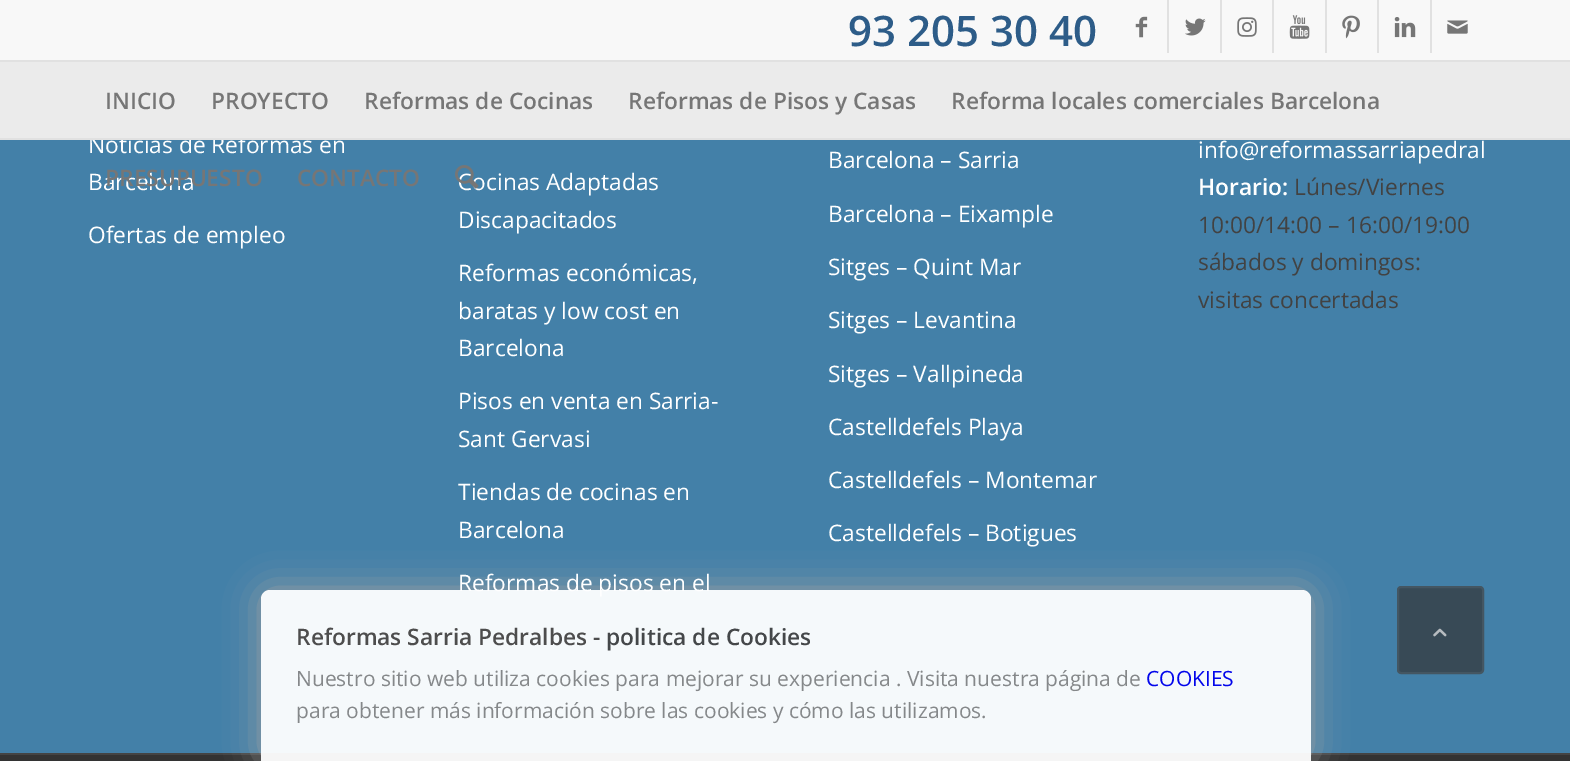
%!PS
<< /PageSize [1570 761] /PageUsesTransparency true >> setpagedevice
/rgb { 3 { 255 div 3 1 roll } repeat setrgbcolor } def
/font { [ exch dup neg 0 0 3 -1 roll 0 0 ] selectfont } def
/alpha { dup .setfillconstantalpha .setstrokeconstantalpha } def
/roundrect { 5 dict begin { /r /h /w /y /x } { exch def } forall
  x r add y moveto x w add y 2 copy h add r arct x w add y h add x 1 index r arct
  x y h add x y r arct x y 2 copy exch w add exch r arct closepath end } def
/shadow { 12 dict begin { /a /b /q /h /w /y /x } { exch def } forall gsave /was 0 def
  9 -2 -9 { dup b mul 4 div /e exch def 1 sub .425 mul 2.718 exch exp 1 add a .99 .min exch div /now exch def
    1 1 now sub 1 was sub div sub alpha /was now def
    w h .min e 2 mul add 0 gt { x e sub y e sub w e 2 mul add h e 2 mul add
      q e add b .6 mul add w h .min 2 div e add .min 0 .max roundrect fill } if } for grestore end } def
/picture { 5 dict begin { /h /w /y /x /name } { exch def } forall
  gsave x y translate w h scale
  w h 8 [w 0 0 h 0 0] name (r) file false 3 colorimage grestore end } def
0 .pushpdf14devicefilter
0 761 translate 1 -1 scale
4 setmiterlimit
67 128 168 rgb
0 0 1570 761 rectfill
[
  [0 0 1570 60 248 248 248]
  [0 60 1570 2 225 225 225]
  [1167 0 2 53 225 225 225]
] { aload pop rgb rectfill } forall
(img/1.rgb) 1135 16 13 22 picture
1220 0 2 53 rectfill
(img/2.rgb) 1185 18 21 18 picture
1272 0 2 53 rectfill
(img/3.rgb) 1237 17 20 20 picture
1325 0 2 53 rectfill
(img/4.rgb) 1289 15 21 24 picture
1377 0 2 53 rectfill
(img/5.rgb) 1342 15 18 24 picture
1430 0 2 53 rectfill
(img/6.rgb) 1394 17 22 21 picture
(img/7.rgb) 1447 20 21 14 picture
51 51 51 rgb
0 755 1570 6 rectfill
68 68 68 rgb
0 753 1570 2 rectfill
gsave
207 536 moveto 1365 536 lineto 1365 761 lineto 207 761 lineto closepath 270 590 moveto 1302 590 lineto 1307 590 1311 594 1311 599 curveto 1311 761 lineto 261 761 lineto 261 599 lineto 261 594 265 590 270 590 curveto closepath eoclip newpath
161 161 161 rgb
261 590 1050 171 9 17.5 0.95 shadow
grestore
56 74 86 rgb
1398 587 85 86 3 roundrect gsave fill grestore
68 86 98 rgb
2 setlinewidth
stroke
(img/9.rgb) 1433 628 14 9 picture
/OpenSans-SemiBold 42 font
45 92 136 rgb
848 46 moveto (93 205 30 40) show
/OpenSans-SemiBold 22.75 font
118 118 118 rgb
297 186 moveto (CONTACTO) show
/OpenSans-Regular 22.75 font
255 255 255 rgb
88 153 moveto (Noticias de Reformas en) show
235 235 235 rgb
0 62 1570 76 rectfill
/OpenSans-SemiBold 22.75 font
118 118 118 rgb
[
  [(Reforma locales comerciales Barcelona) 951 109]
  [(Reformas de Pisos y Casas) 628 109]
  [(Reformas de Cocinas) 364 109]
  [(PROYECTO) 211 109]
  [(INICIO) 105 109]
] { aload pop moveto show } forall
225 225 225 rgb
0 138 1570 2 rectfill
/OpenSans-Regular 22.75 font
255 255 255 rgb
88 190 moveto (Barcelona) show
/OpenSans-SemiBold 22.75 font
118 118 118 rgb
105 186 moveto (PRESUPUESTO) show
/OpenSans-Regular 22.75 font
255 255 255 rgb
88 243 moveto (Ofertas de empleo) show
458 190 moveto (Cocinas Adaptadas) show
(img/8.rgb) 455 165 24 24 picture
[
  [(Discapacitados) 458 228]
  [(Reformas económicas,) 458 281]
  [(baratas y low cost en) 458 319]
  [(Barcelona) 458 356]
  [(Pisos en venta en Sarria-) 458 409]
  [(Sant Gervasi) 458 447]
  [(Tiendas de cocinas en) 458 500]
  [(Barcelona) 458 538]
  [(Reformas de pisos en el) 458 591]
  [(Barcelona – Sarria) 828 168]
  [(Barcelona – Eixample) 828 222]
  [(Sitges – Quint Mar) 828 275]
  [(Sitges – Levantina) 828 328]
  [(Sitges – Vallpineda) 828 382]
  [(Castelldefels Playa) 828 435]
  [(Castelldefels – Montemar) 828 488]
  [(Castelldefels – Botigues) 828 541]
  [(info@reformassarriapedral) 1198 158]
] { aload pop moveto show } forall
/OpenSans-SemiBold 22.75 font
1198 195 moveto (Horario:) show
/OpenSans-Regular 22.75 font
66 66 66 rgb
[
  [(Lúnes/Viernes) 1294 195]
  [(10:00/14:00 – 16:00/19:00) 1198 233]
  [(sábados y domingos:) 1198 270]
  [(visitas concertadas) 1198 308]
] { aload pop moveto show } forall
0.95 alpha
255 255 255 rgb
270 590 moveto 1302 590 lineto 1307 590 1311 594 1311 599 curveto 1311 761 lineto 261 761 lineto 261 599 lineto 261 594 265 590 270 590 curveto closepath fill
/OpenSans-SemiBold 22.75 font
1 alpha
77 77 77 rgb
296 645 moveto (Reformas Sarria Pedralbes -) show
68 71 73 rgb
606 645 moveto (politica de Cookies) show
/OpenSans-Regular 21 font
133 136 138 rgb
296 686 moveto (Nuestro sitio web utiliza cookies para mejorar su experiencia . Visita nuestra página de) show
3 6 235 rgb
1146 686 moveto (COOKIES) show
133 136 138 rgb
296 718 moveto (para obtener más información sobre las cookies y cómo las utilizamos.) show
.poppdf14devicefilter showpage
